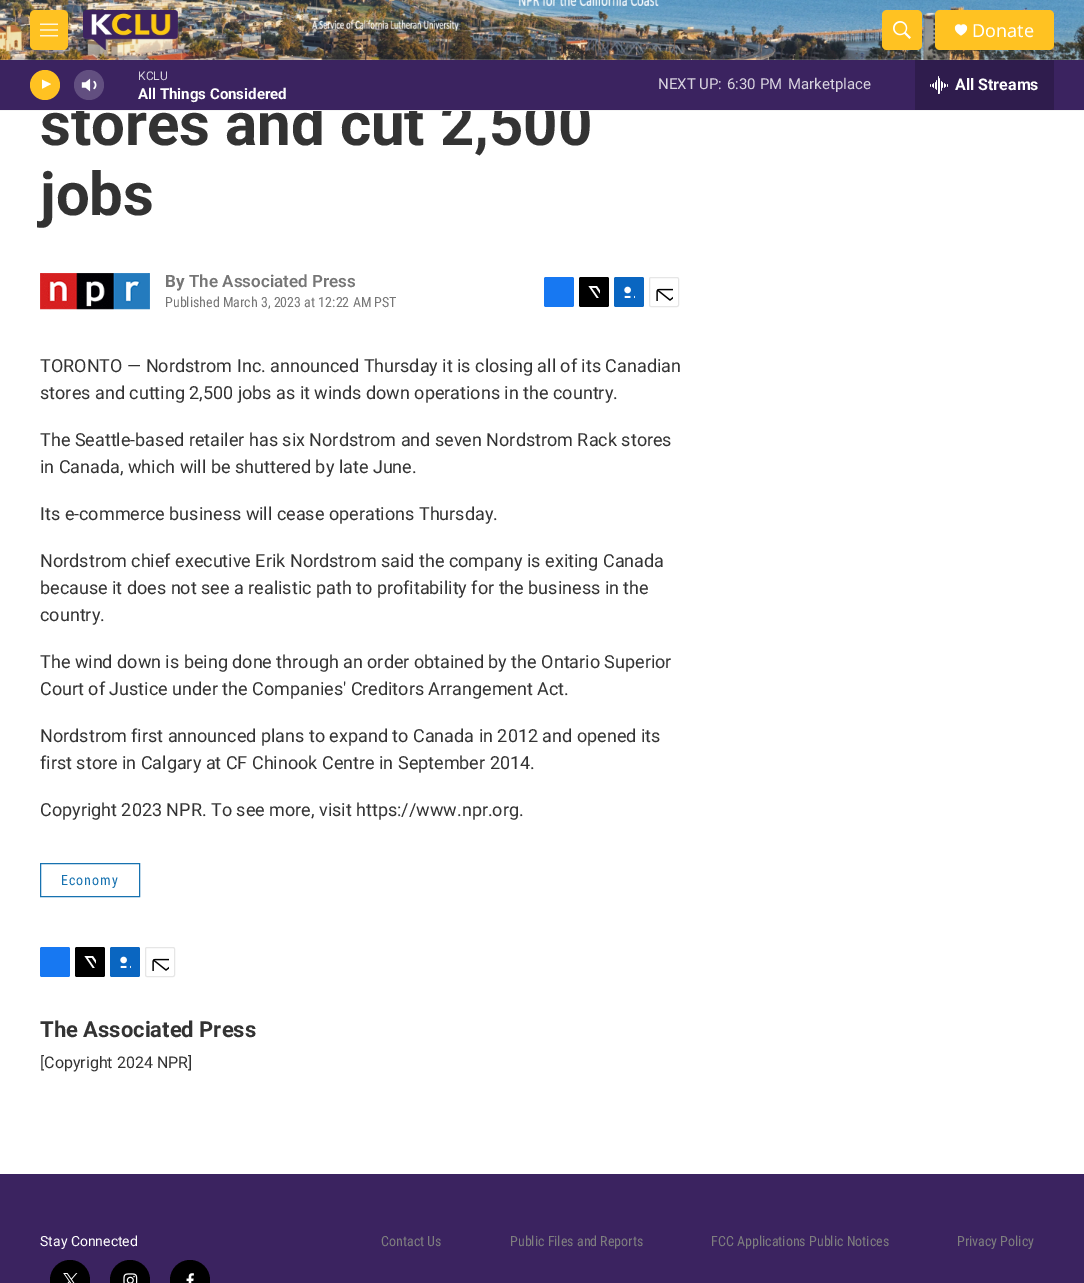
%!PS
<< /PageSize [1084 1283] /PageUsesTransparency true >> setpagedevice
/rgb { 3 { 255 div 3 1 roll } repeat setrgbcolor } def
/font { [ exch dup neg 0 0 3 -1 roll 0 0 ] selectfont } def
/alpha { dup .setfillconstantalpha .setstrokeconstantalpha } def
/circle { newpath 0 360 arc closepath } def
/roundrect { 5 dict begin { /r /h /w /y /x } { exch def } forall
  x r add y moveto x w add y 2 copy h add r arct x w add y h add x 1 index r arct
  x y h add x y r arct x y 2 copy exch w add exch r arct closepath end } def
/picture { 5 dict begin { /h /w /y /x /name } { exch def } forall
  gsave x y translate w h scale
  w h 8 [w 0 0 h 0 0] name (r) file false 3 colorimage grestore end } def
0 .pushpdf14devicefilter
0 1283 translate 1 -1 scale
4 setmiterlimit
255 255 255 rgb
0 0 1084 1283 rectfill
(img/1.rgb) 0 0 1084 60 picture
255 194 34 rgb
30 10 38 40 5 roundrect fill
(img/2.rgb) 40 23 18 14 picture
(img/3.rgb) 83 10 95 40 picture
882 10 40 40 5 roundrect fill
(img/4.rgb) 893 21 18 18 picture
935 10 119 40 5 roundrect fill
255 255 255 rgb
961 26 moveto 959 21 948.5 28 961 35.5 curveto 973.5 28 963 21 961 26 curveto closepath fill
(img/7.rgb) 40 273 110 37 picture
23 120 242 rgb
544 277 30 30 2 roundrect fill
0 0 0 rgb
579 277 30 30 2 roundrect fill
(img/8.rgb) 588 286 12 12 picture
10 102 193 rgb
614 277 30 30 2 roundrect fill
(img/9.rgb) 624 286 11 12 picture
230 230 230 rgb
649.5 277.5 29 29 1.5 roundrect stroke
(img/10.rgb) 656 288 17 13 picture
23 114 176 rgb
40.5 863.5 99 33 rectstroke
23 120 242 rgb
40 947 30 30 2 roundrect fill
0 0 0 rgb
75 947 30 30 2 roundrect fill
(img/8.rgb) 84 956 12 12 picture
10 102 193 rgb
110 947 30 30 2 roundrect fill
(img/9.rgb) 120 956 11 12 picture
230 230 230 rgb
145.5 947.5 29 29 1.5 roundrect stroke
(img/10.rgb) 152 958 17 13 picture
59 35 96 rgb
0 1174 1084 109 rectfill
0 0 0 rgb
70 1280 20 circle fill
(img/11.rgb) 63 1273 15 10 picture
130 1280 20 circle fill
(img/12.rgb) 123 1273 15 10 picture
190 1280 20 circle fill
(img/13.rgb) 186 1273 8 10 picture
/NotoSans-Regular 18 font
255 255 255 rgb
972 37 moveto (Donate) show
/Roboto-Bold 60 font
51 51 51 rgb
40 145 moveto (stores and cut 2,500) show
59 35 96 rgb
0 60 1084 50 rectfill
/Roboto-Regular 15 font
216 211 223 rgb
[
  [(Marketplace) 788 89]
  [(6:30 PM) 727 89]
  [(NEXT UP:) 658 89]
] { aload pop moveto show } forall
/Roboto-Regular 12 font
138 80 moveto (KCLU) show
(img/5.rgb) 81 78 16 14 picture
0.2 alpha
255 255 255 rgb
89 85 15 circle fill
1 alpha
255 194 34 rgb
45 85 15 circle fill
gsave
42 78 12 15 rectclip
255 255 255 rgb
41.5 79.5 moveto 51 84 lineto 41.5 89 lineto closepath fill
grestore
47 28 77 rgb
915 60 139 50 rectfill
(img/6.rgb) 930 76 18 18 picture
/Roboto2-Bold 15 font
255 255 255 rgb
138 99 moveto (All Things Considered) show
/Roboto2-Bold 16 font
955 90 moveto (All Streams) show
245 245 245 rgb
0 110 1084 1 rectfill
/Roboto-Bold 60 font
51 51 51 rgb
40 215 moveto (jobs) show
/Roboto-Bold 17 font
118 118 118 rgb
165 287 moveto (By) show
/Roboto-SemiBold 17 font
189 287 moveto (The Associated Press) show
/RobotoCondensed-Regular 14 font
165 307 moveto (Published March 3, 2023 at 12:22 AM PST) show
/Roboto-Regular 18 font
51 51 51 rgb
[
  [(TORONTO — Nordstrom Inc. announced Thursday it is closing all of its Canadian) 40 372]
  [(stores and cutting 2,500 jobs as it winds down operations in the country.) 40 399]
  [(The Seattle-based retailer has six Nordstrom and seven Nordstrom Rack stores) 40 446]
  [(in Canada, which will be shuttered by late June.) 40 473]
  [(Its e-commerce business will cease operations Thursday.) 40 520]
  [(Nordstrom chief executive Erik Nordstrom said the company is exiting Canada) 40 567]
  [(because it does not see a realistic path to profitability for the business in the) 40 594]
  [(country.) 40 621]
  [(The wind down is being done through an order obtained by the Ontario Superior) 40 668]
  [(Court of Justice under the Companies' Creditors Arrangement Act.) 40 695]
  [(Nordstrom first announced plans to expand to Canada in 2012 and opened its) 40 742]
  [(first store in Calgary at CF Chinook Centre in September 2014.) 40 769]
  [(Copyright 2023 NPR. To see more, visit https://www.npr.org.) 40 816]
] { aload pop moveto show } forall
/RobotoCondensed-Regular 14 font
23 114 176 rgb
61 885 moveto 1 0 (Economy) ashow
/Roboto-Bold 22 font
51 51 51 rgb
40 1037 moveto (The Associated Press) show
/Roboto-Regular 16 font
40 1068 moveto ([Copyright 2024 NPR]) show
/Roboto-Regular 14 font
255 255 255 rgb
40 1246 moveto (Stay Connected) show
/RobotoCondensed-Regular 14 font
126 126 126 rgb
[
  [(Contact Us) 381 1246]
  [(Public Files and Reports) 510 1246]
  [(FCC Applications Public Notices) 711 1246]
  [(Privacy Policy) 957 1246]
] { aload pop moveto show } forall
.poppdf14devicefilter showpage
